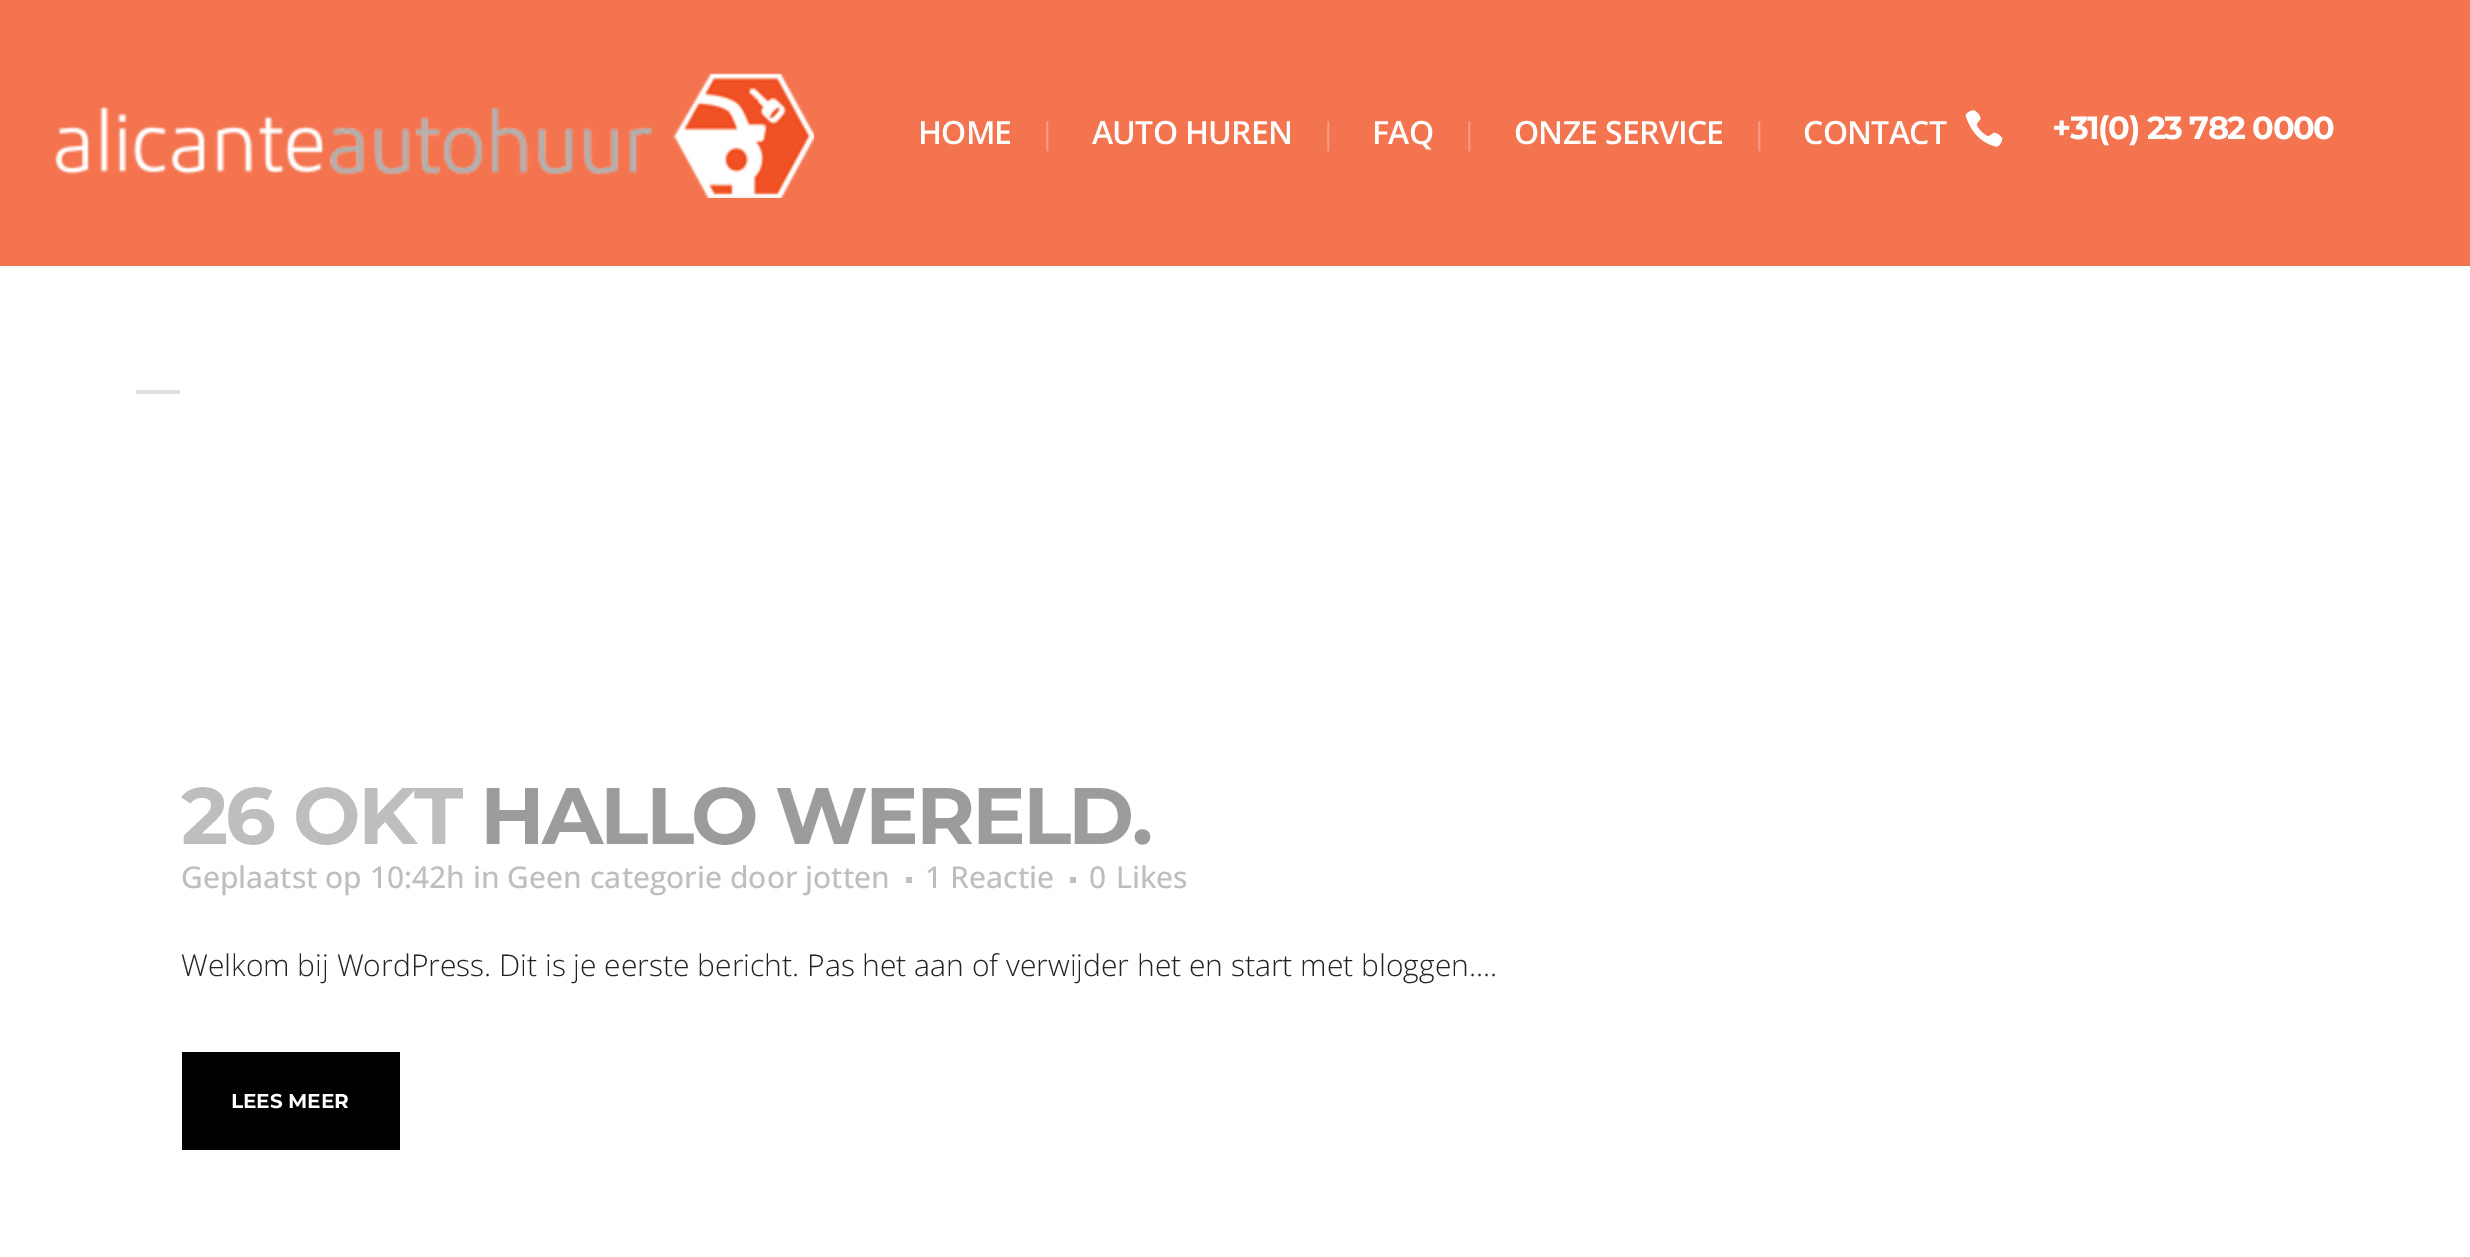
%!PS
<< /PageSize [2470 1257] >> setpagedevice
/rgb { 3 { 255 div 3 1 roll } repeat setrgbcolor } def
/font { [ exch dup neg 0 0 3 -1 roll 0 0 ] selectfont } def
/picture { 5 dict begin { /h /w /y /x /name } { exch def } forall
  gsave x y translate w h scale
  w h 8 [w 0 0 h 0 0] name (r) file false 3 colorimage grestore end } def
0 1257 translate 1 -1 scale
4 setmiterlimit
255 255 255 rgb
0 0 2470 1257 rectfill
243 116 79 rgb
0 0 2470 266 rectfill
(img/1.rgb) 55 73 759 125 picture
(img/2.rgb) 1965 110 38 37 picture
[
  [136 390 44 4 226 226 226]
  [906 877 6 6 190 190 190]
  [1070 877 6 6 190 190 190]
  [182 1052 218 98 0 0 0]
] { aload pop rgb rectfill } forall
/OpenSans-SemiBold 32 font
255 255 255 rgb
918 144 moveto -0.75 0 (HOME) ashow
/OpenSans-Regular 30 font
247 158 132 rgb
1039 144 moveto (|) show
/OpenSans-SemiBold 32 font
255 255 255 rgb
1092 144 moveto -0.75 0 (AUTO HUREN) ashow
/OpenSans-Regular 30 font
247 158 132 rgb
1320 144 moveto (|) show
/OpenSans-SemiBold 32 font
255 255 255 rgb
1372 144 moveto -0.75 0 (FAQ) ashow
/OpenSans-Regular 30 font
247 158 132 rgb
1461 144 moveto (|) show
/OpenSans-SemiBold 32 font
255 255 255 rgb
1514 144 moveto -0.75 0 (ONZE SERVICE) ashow
/OpenSans-Regular 30 font
247 158 132 rgb
1751 144 moveto (|) show
/OpenSans-SemiBold 32 font
255 255 255 rgb
1803 144 moveto -0.75 0 (CONTACT) ashow
/Montserrat-Bold 32 font
2052 139 moveto -1.4 0 (+31\(0\) 23 782 0000) ashow
/Montserrat-Bold 80 font
190 190 190 rgb
181 844 moveto -2.9 0 (26 OKT) ashow
156 156 156 rgb
480 844 moveto -2.9 0 (HALLO WERELD.) ashow
/OpenSans-Medium 30 font
190 190 190 rgb
[
  [(Geplaatst op 10:42h in Geen categorie door jotten) 181 888]
  [(1 Reactie) 925 888]
  [(0) 1089 888]
  [(Likes) 1116 888]
] { aload pop moveto show } forall
/OpenSans-Light 30 font
34 34 34 rgb
181 976 moveto (Welkom bij WordPress. Dit is je eerste bericht. Pas het aan of verwijder het en start met bloggen....) show
/Montserrat-Bold 20 font
255 255 255 rgb
231 1108 moveto (LEES MEER) show
showpage
